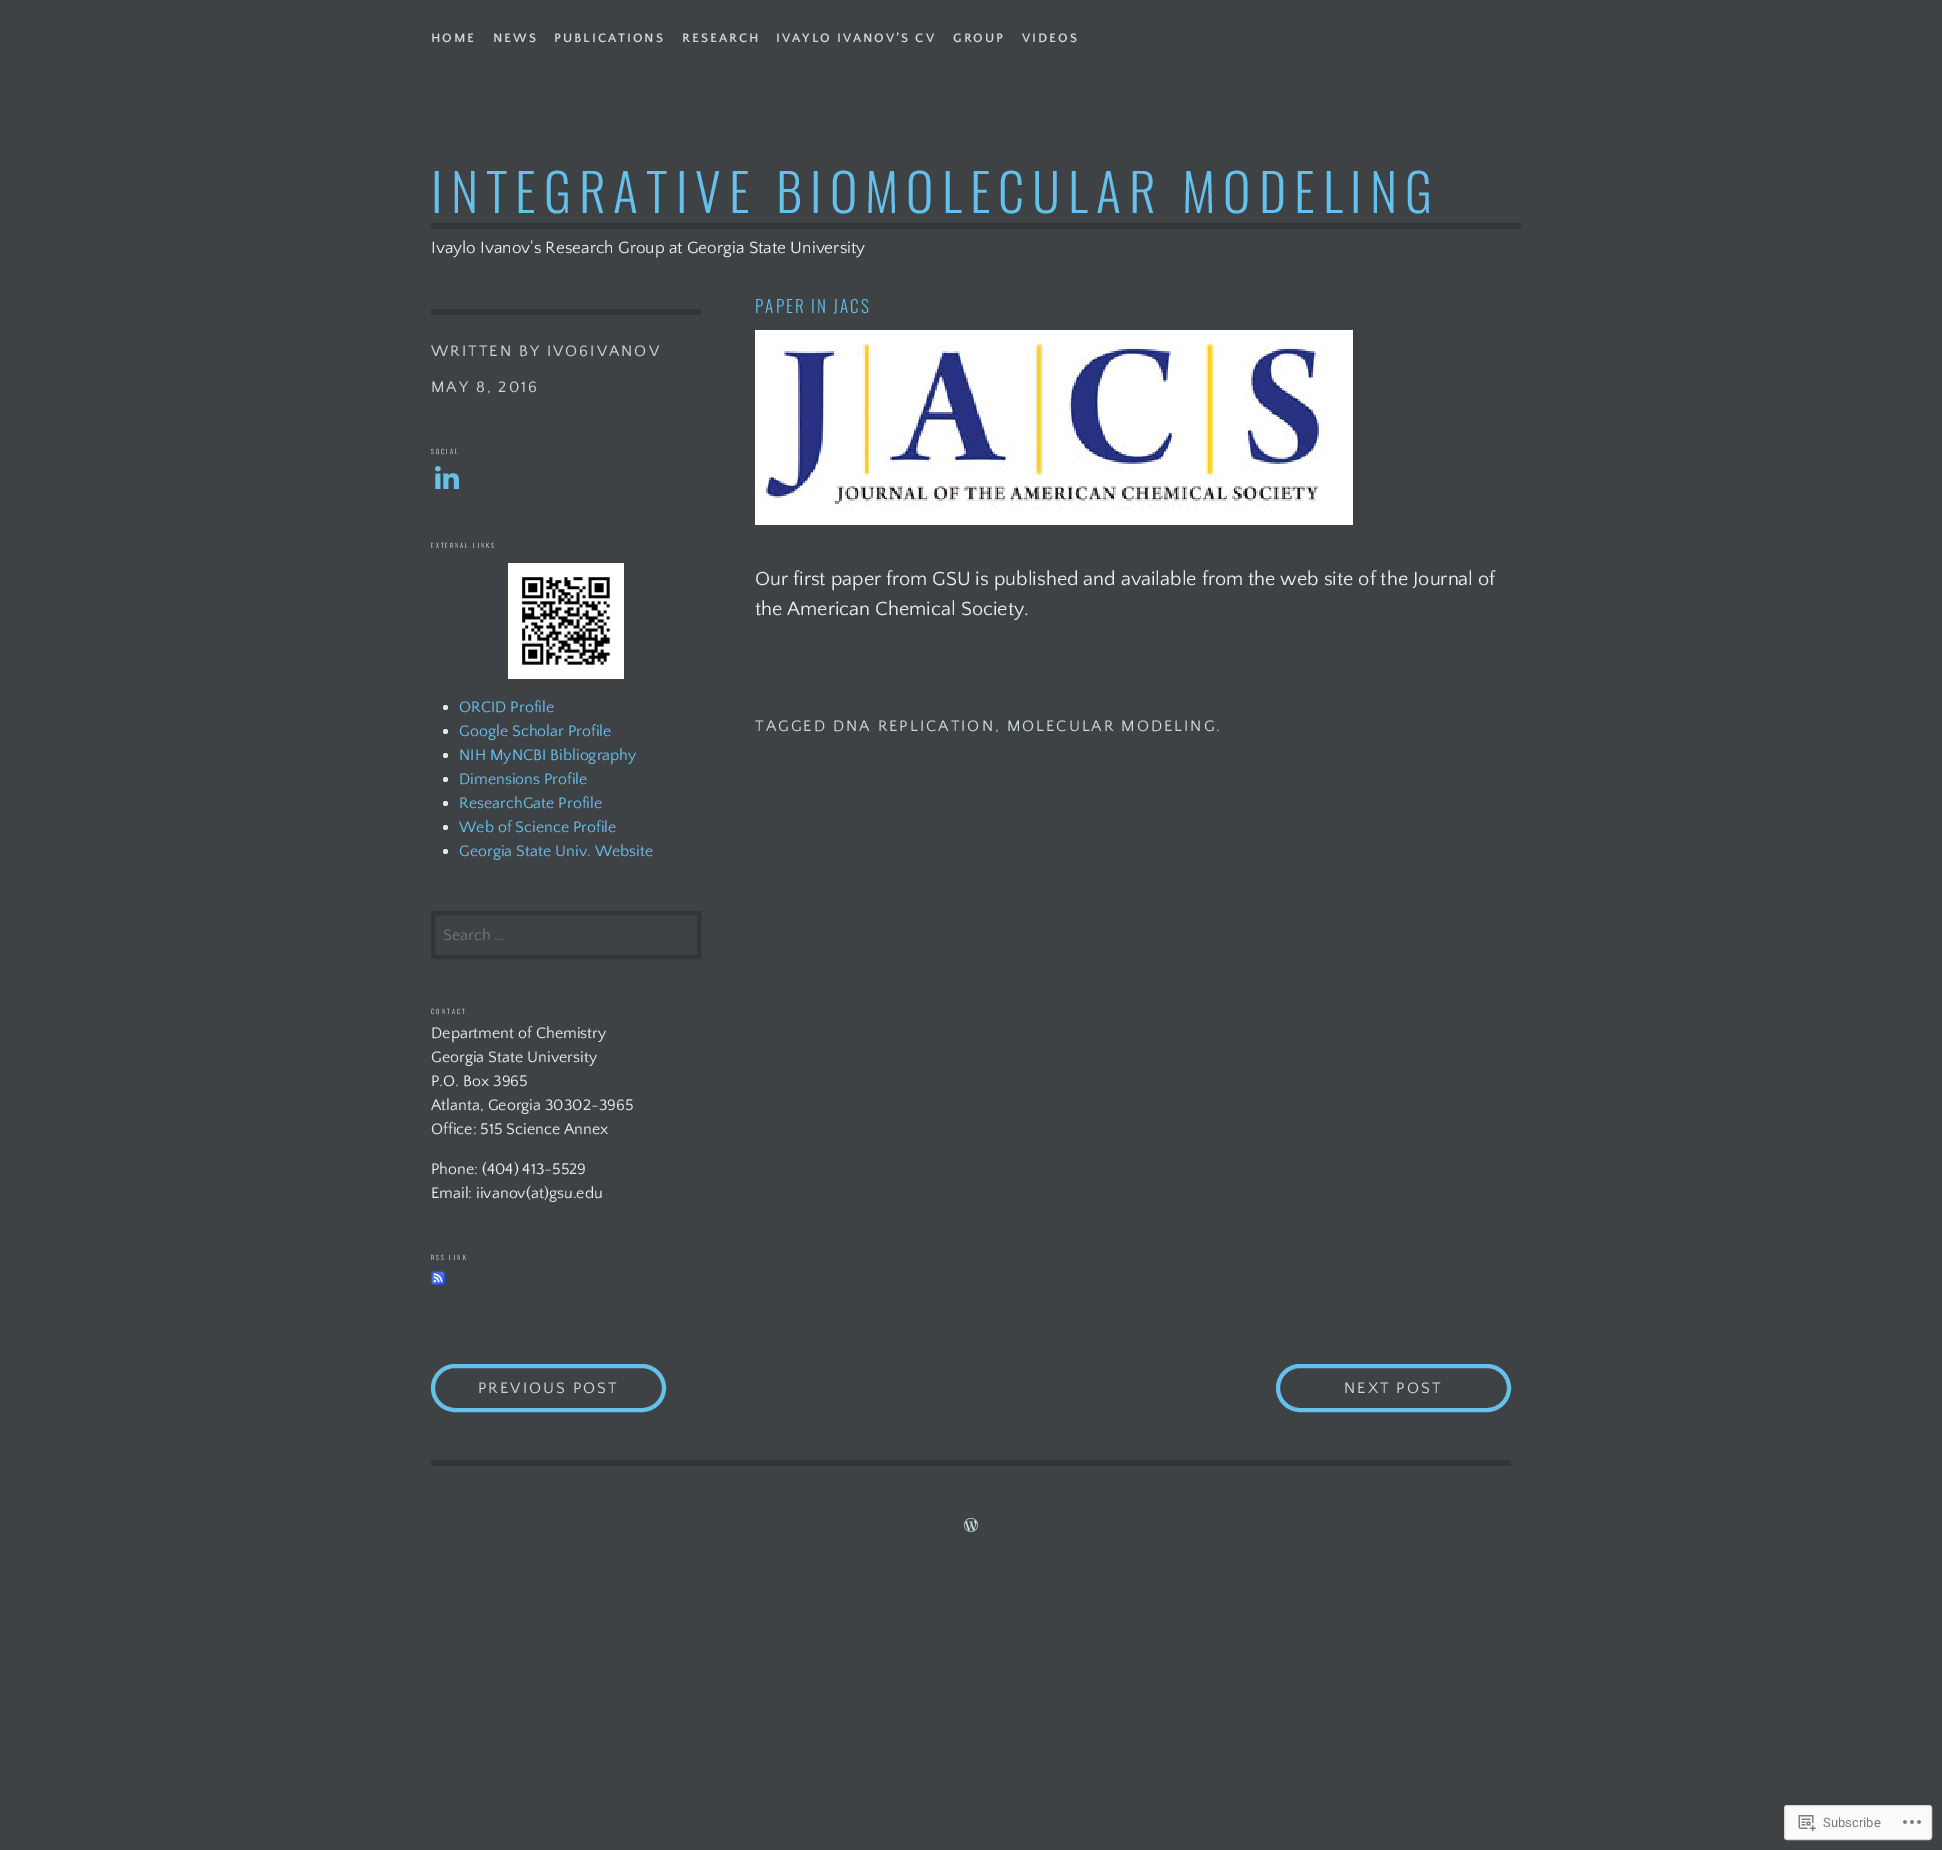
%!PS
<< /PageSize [1942 1850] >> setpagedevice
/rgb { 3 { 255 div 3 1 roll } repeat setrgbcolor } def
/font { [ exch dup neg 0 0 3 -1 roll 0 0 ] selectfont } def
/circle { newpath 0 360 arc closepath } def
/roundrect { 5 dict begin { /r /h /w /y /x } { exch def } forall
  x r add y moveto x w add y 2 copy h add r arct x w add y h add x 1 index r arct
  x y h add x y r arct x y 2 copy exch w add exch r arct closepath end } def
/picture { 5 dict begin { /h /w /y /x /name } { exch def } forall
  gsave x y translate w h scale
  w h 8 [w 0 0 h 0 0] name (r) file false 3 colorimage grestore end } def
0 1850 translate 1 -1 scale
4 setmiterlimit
62 66 68 rgb
0 0 1942 1850 rectfill
49 53 55 rgb
431 223 1090 6 rectfill
431 309 270 6 rectfill
(img/1.rgb) 435 466 24 23 picture
(img/2.rgb) 508 563 116 116 picture
230 237 240 rgb
445.5 707.5 2.5 circle fill
445.5 731.5 2.5 circle fill
445.5 755.5 2.5 circle fill
445.5 779.5 2.5 circle fill
445.5 803.5 2.5 circle fill
445.5 827.5 2.5 circle fill
445.5 851.5 2.5 circle fill
49 53 55 rgb
4 setlinewidth
433 913 moveto 699 913 lineto 699 957 lineto 433 957 lineto closepath stroke
(img/3.rgb) 431 1271 14 14 picture
(img/4.rgb) 755 330 598 195 picture
102 192 236 rgb
433 1366 231 44 22 roundrect stroke
1278 1366 231 44 22 roundrect stroke
49 53 55 rgb
431 1460 1080 6 rectfill
(img/5.rgb) 964 1518 14 14 picture
251 251 251 rgb
1784.5 1805.5 147 34 2.5 roundrect gsave fill grestore
217 217 219 rgb
1 setlinewidth
stroke
(img/6.rgb) 1798 1815 18 17 picture
(img/7.rgb) 1903 1820 18 4 picture
/QuattrocentoSans-Bold 13 font
202 217 217 rgb
431 42 moveto 2 0 (HOME) ashow
493 42 moveto 2 0 (NEWS) ashow
554 42 moveto 2 0 (PUBLICATIONS) ashow
682 42 moveto 2 0 (RESEARCH) ashow
776 42 moveto 2 0 (IVAYLO IVANOV’S CV) ashow
953 42 moveto 2 0 (GROUP) ashow
1022 42 moveto 2 0 (VIDEOS) ashow
/Oswald-Light 52 font
102 192 236 rgb
431 213 moveto 8 0 (INTEGRATIVE BIOMOLECULAR MODELING) ashow
/QuattrocentoSans-Regular 17.2 font
230 237 240 rgb
431 253 moveto (Ivaylo Ivanov's Research Group at Georgia State University) show
/Oswald-Light 17.2 font
102 192 236 rgb
755 313 moveto 2 0 (PAPER IN JACS) ashow
/QuattrocentoSans-Regular 16 font
202 217 217 rgb
431 356 moveto 2 0 (WRITTEN BY IVO6IVANOV) ashow
431 392 moveto 2 0 (MAY 8, 2016) ashow
/Oswald-Light 6.4 font
230 237 240 rgb
431 454 moveto 2 0 (SOCIAL) ashow
431 548 moveto 2 0 (EXTERNAL LINKS) ashow
/QuattrocentoSans-Regular 16 font
102 192 236 rgb
[
  [(ORCID Profile) 459 712]
  [(Google Scholar Profile) 459 736]
  [(NIH MyNCBI Bibliography) 459 760]
  [(Dimensions Profile) 459 784]
  [(ResearchGate Profile) 459 808]
  [(Web of Science Profile) 459 832]
  [(Georgia State Univ. Website) 459 856]
] { aload pop moveto show } forall
117 117 117 rgb
443 940 moveto (Search …) show
/Oswald-Light 6.4 font
230 237 240 rgb
431 1014 moveto 2 0 (CONTACT) ashow
/QuattrocentoSans-Regular 16 font
[
  [(Department of Chemistry) 431 1038]
  [(Georgia State University) 431 1062]
  [(P.O. Box 3965) 431 1086]
  [(Atlanta, Georgia 30302-3965) 431 1110]
  [(Office: 515 Science Annex) 431 1134]
  [(Phone: \(404\) 413-5529) 431 1174]
  [(Email: iivanov\(at\)gsu.edu) 431 1198]
] { aload pop moveto show } forall
/Oswald-Light 6.4 font
431 1260 moveto 2 0 (RSS LINK) ashow
/QuattrocentoSans-Regular 20 font
755 585 moveto (Our first paper from GSU is published and available from the web site of the Journal of) show
755 615 moveto (the American Chemical Society.) show
/QuattrocentoSans-Regular 16 font
202 217 217 rgb
755 731 moveto 2 0 (TAGGED DNA REPLICATION, MOLECULAR MODELING.) ashow
478 1393 moveto 2 0 (PREVIOUS POST) ashow
1344 1393 moveto 2 0 (NEXT POST) ashow
/Roboto-Regular 13 font
119 123 129 rgb
1823 1827 moveto (Subscribe) show
showpage
